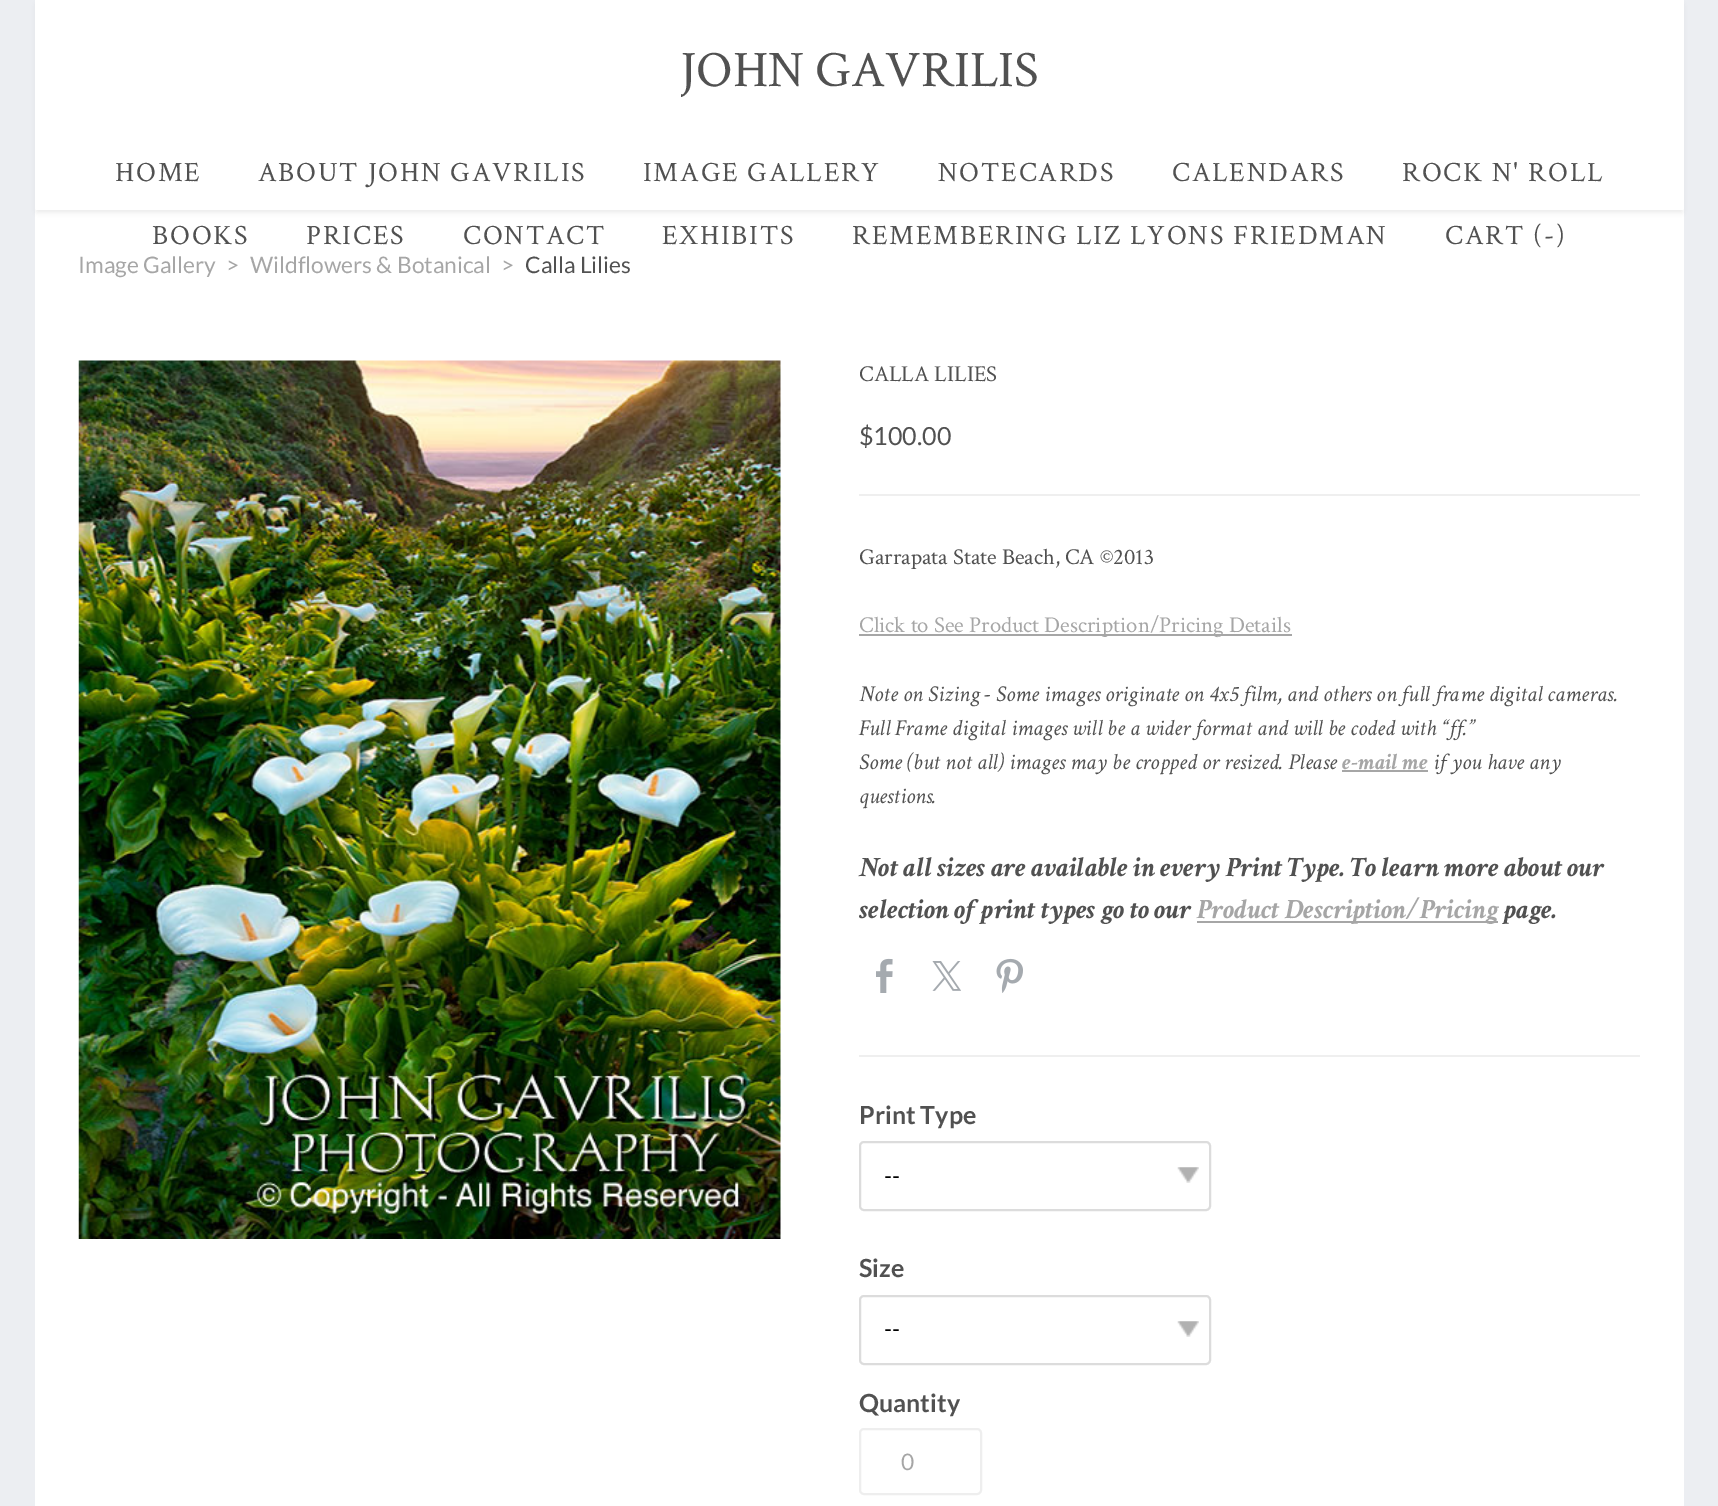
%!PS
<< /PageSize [1718 1506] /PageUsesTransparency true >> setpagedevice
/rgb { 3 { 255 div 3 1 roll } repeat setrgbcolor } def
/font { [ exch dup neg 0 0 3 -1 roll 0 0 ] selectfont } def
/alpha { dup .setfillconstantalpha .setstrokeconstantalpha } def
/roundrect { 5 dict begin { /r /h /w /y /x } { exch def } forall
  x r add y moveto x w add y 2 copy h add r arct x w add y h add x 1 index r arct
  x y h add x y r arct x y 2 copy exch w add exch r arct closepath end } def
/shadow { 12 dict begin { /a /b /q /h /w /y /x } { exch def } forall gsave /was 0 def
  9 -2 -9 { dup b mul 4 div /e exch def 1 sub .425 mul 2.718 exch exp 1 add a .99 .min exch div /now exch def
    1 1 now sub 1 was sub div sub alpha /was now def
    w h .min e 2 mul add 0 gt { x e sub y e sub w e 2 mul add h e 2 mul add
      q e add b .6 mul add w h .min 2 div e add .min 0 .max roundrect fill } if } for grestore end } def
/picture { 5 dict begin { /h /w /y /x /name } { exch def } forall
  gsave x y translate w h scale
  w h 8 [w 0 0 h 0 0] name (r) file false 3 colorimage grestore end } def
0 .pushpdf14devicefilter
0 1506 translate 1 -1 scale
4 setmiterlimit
236 238 242 rgb
0 0 1718 1506 rectfill
255 255 255 rgb
35 0 1649 1506 rectfill
30 30 30 rgb
37 5 1645 207 0 2.5 0.1 shadow
255 255 255 rgb
35 0 1649 210 2 roundrect fill
(img/1.rgb) 78 360 703 879 picture
[
  [859 494 781 2 239 239 239]
  [859 634 433 2 166 166 166]
  [1342 770 86 2 166 166 166]
  [1197 921 301 2 166 166 166]
] { aload pop rgb rectfill } forall
(img/2.rgb) 876 958 17 35 picture
(img/3.rgb) 932 961 29 30 picture
(img/4.rgb) 996 958 27 35 picture
239 239 239 rgb
859 1055 781 2 rectfill
(img/5.rgb) 1177 1167 22 16 picture
220 220 220 rgb
2 setlinewidth
860 1142 350 68 4 roundrect stroke
(img/5.rgb) 1177 1321 22 16 picture
860 1296 350 68 4 roundrect stroke
238 238 238 rgb
860 1429 121 65 4 roundrect stroke
gsave
681 40 357 62 rectclip
/CrimsonText-Regular 51.25 font
81 81 81 rgb
680 86 moveto (JOHN GAVRILIS) show
grestore
/CrimsonText-Regular 28 font
81 81 81 rgb
115 181 moveto 1.75 0 (HOME) ashow
258 181 moveto 1.75 0 (ABOUT JOHN GAVRILIS) ashow
643 181 moveto 1.75 0 (IMAGE GALLERY) ashow
938 181 moveto 1.75 0 (NOTECARDS) ashow
1172 181 moveto 1.75 0 (CALENDARS) ashow
1402 181 moveto 1.75 0 (ROCK N' ROLL) ashow
152 244 moveto 1.75 0 (BOOKS) ashow
306 244 moveto 1.75 0 (PRICES) ashow
463 244 moveto 1.75 0 (CONTACT) ashow
662 244 moveto 1.75 0 (EXHIBITS) ashow
852 244 moveto 1.75 0 (REMEMBERING LIZ LYONS FRIEDMAN) ashow
1445 244 moveto 1.75 0 (CART \(-\)) ashow
/Lato-Regular 22.75 font
166 166 166 rgb
[
  [(Image Gallery) 78 273]
  [(>) 226 273]
  [(Wildflowers & Botanical) 250 273]
  [(>) 501 273]
] { aload pop moveto show } forall
81 81 81 rgb
525 273 moveto (Calla Lilies) show
/CrimsonText-Regular 22.75 font
859 381 moveto (CALLA LILIES) show
/Lato-Regular 25 font
859 445 moveto ($100.00) show
/CrimsonText-Regular 22.75 font
859 564 moveto (Garrapata State Beach, CA ©2013) show
166 166 166 rgb
859 632 moveto (Click to See Product Description/Pricing Details) show
/CrimsonText-Italic 22.75 font
81 81 81 rgb
[
  [(Note on Sizing - Some images originate on 4x5 film, and others on full frame digital cameras.) 859 701]
  [(Full Frame digital images will be a wider format and will be coded with “ff.”) 859 735]
  [(Some \(but not all\) images may be cropped or resized. Please) 859 769]
] { aload pop moveto show } forall
/CrimsonText-BoldItalic 22.75 font
166 166 166 rgb
1342 769 moveto (e-mail me) show
/CrimsonText-Italic 22.75 font
81 81 81 rgb
1433 769 moveto (if you have any) show
859 803 moveto (questions.) show
/CrimsonText-BoldItalic 28 font
859 876 moveto (Not all sizes are available in every Print Type. To learn more about our) show
859 918 moveto (selection of print types go to our) show
166 166 166 rgb
1197 918 moveto (Product Description/Pricing) show
81 81 81 rgb
1504 918 moveto (page.) show
/Lato-Bold 25 font
859 1124 moveto (Print Type) show
/Lato-Regular 22.75 font
0 0 0 rgb
884 1184 moveto (--) show
/Lato-Bold 25 font
81 81 81 rgb
859 1277 moveto (Size) show
/Lato-Regular 22.75 font
0 0 0 rgb
884 1337 moveto (--) show
/Lato-Bold 25 font
81 81 81 rgb
859 1412 moveto (Quantity) show
/Lato-Regular 22.75 font
166 166 166 rgb
901 1470 moveto (0) show
.poppdf14devicefilter showpage
